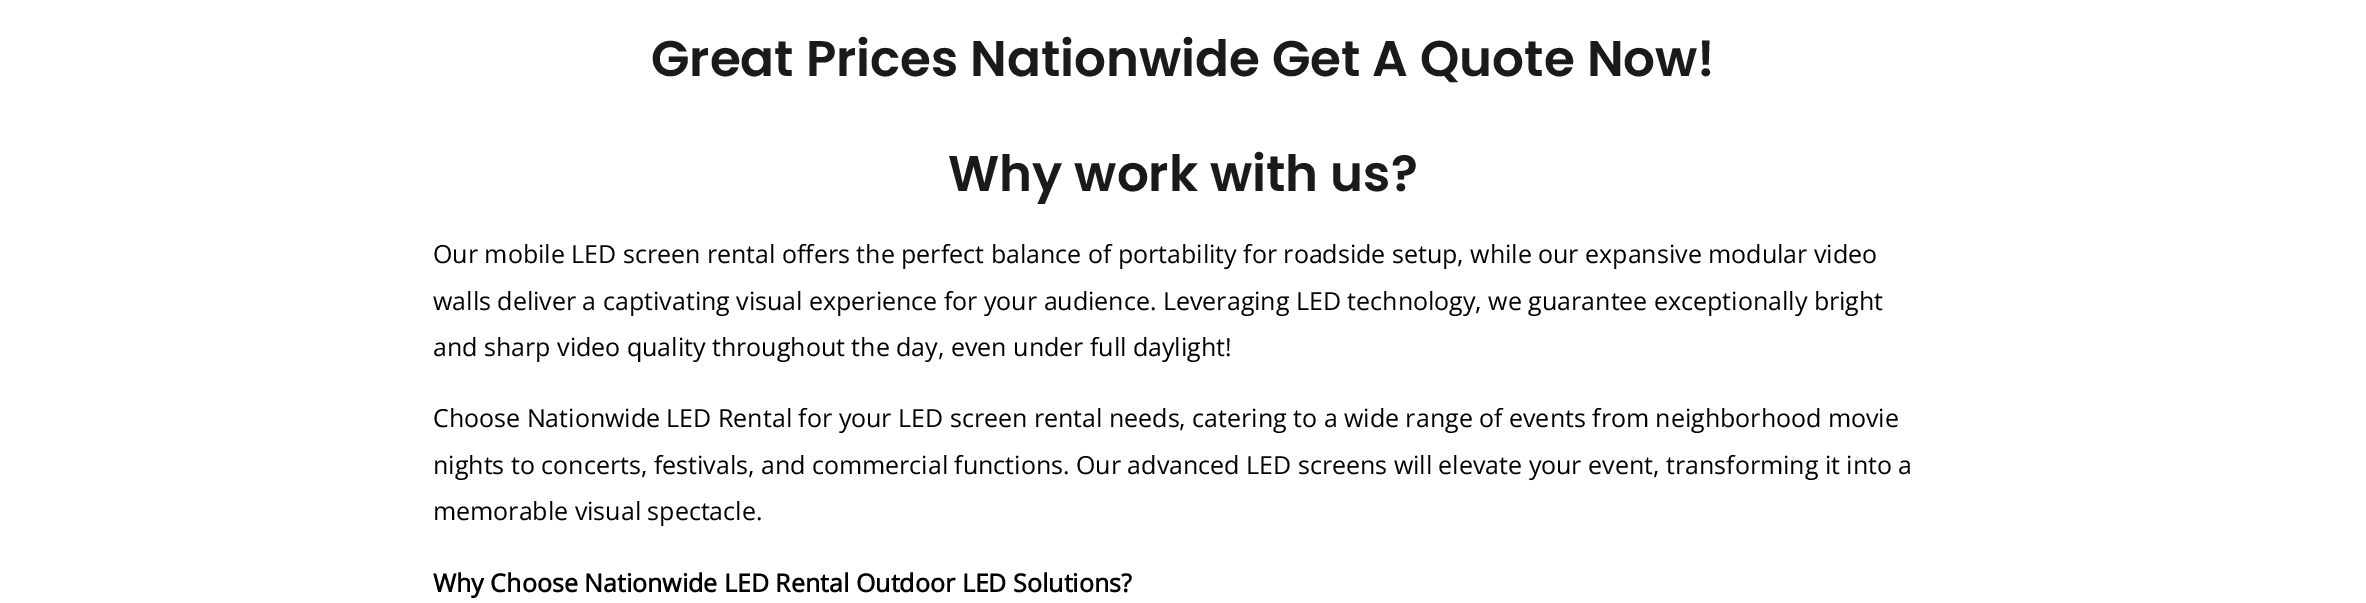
%!PS
<< /PageSize [2366 603] >> setpagedevice
/rgb { 3 { 255 div 3 1 roll } repeat setrgbcolor } def
/font { [ exch dup neg 0 0 3 -1 roll 0 0 ] selectfont } def
0 603 translate 1 -1 scale
4 setmiterlimit
255 255 255 rgb
0 0 2366 603 rectfill
/Poppins-SemiBold 50 font
26 26 26 rgb
651 76 moveto (Great Prices Nationwide Get A Quote Now!) show
948 191 moveto (Why work with us?) show
/OpenSans-Regular 25 font
0 0 0 rgb
[
  [(Our mobile LED screen rental offers the perfect balance of portability for roadside setup, while our expansive modular video) 433 263]
  [(walls deliver a captivating visual experience for your audience. Leveraging LED technology, we guarantee exceptionally bright) 433 310]
  [(and sharp video quality throughout the day, even under full daylight!) 433 356]
  [(Choose Nationwide LED Rental for your LED screen rental needs, catering to a wide range of events from neighborhood movie) 433 427]
  [(nights to concerts, festivals, and commercial functions. Our advanced LED screens will elevate your event, transforming it into a) 433 474]
  [(memorable visual spectacle.) 433 520]
] { aload pop moveto show } forall
/OpenSans-Bold 25 font
433 592 moveto (Why Choose Nationwide LED Rental Outdoor LED Solutions?) show
showpage
